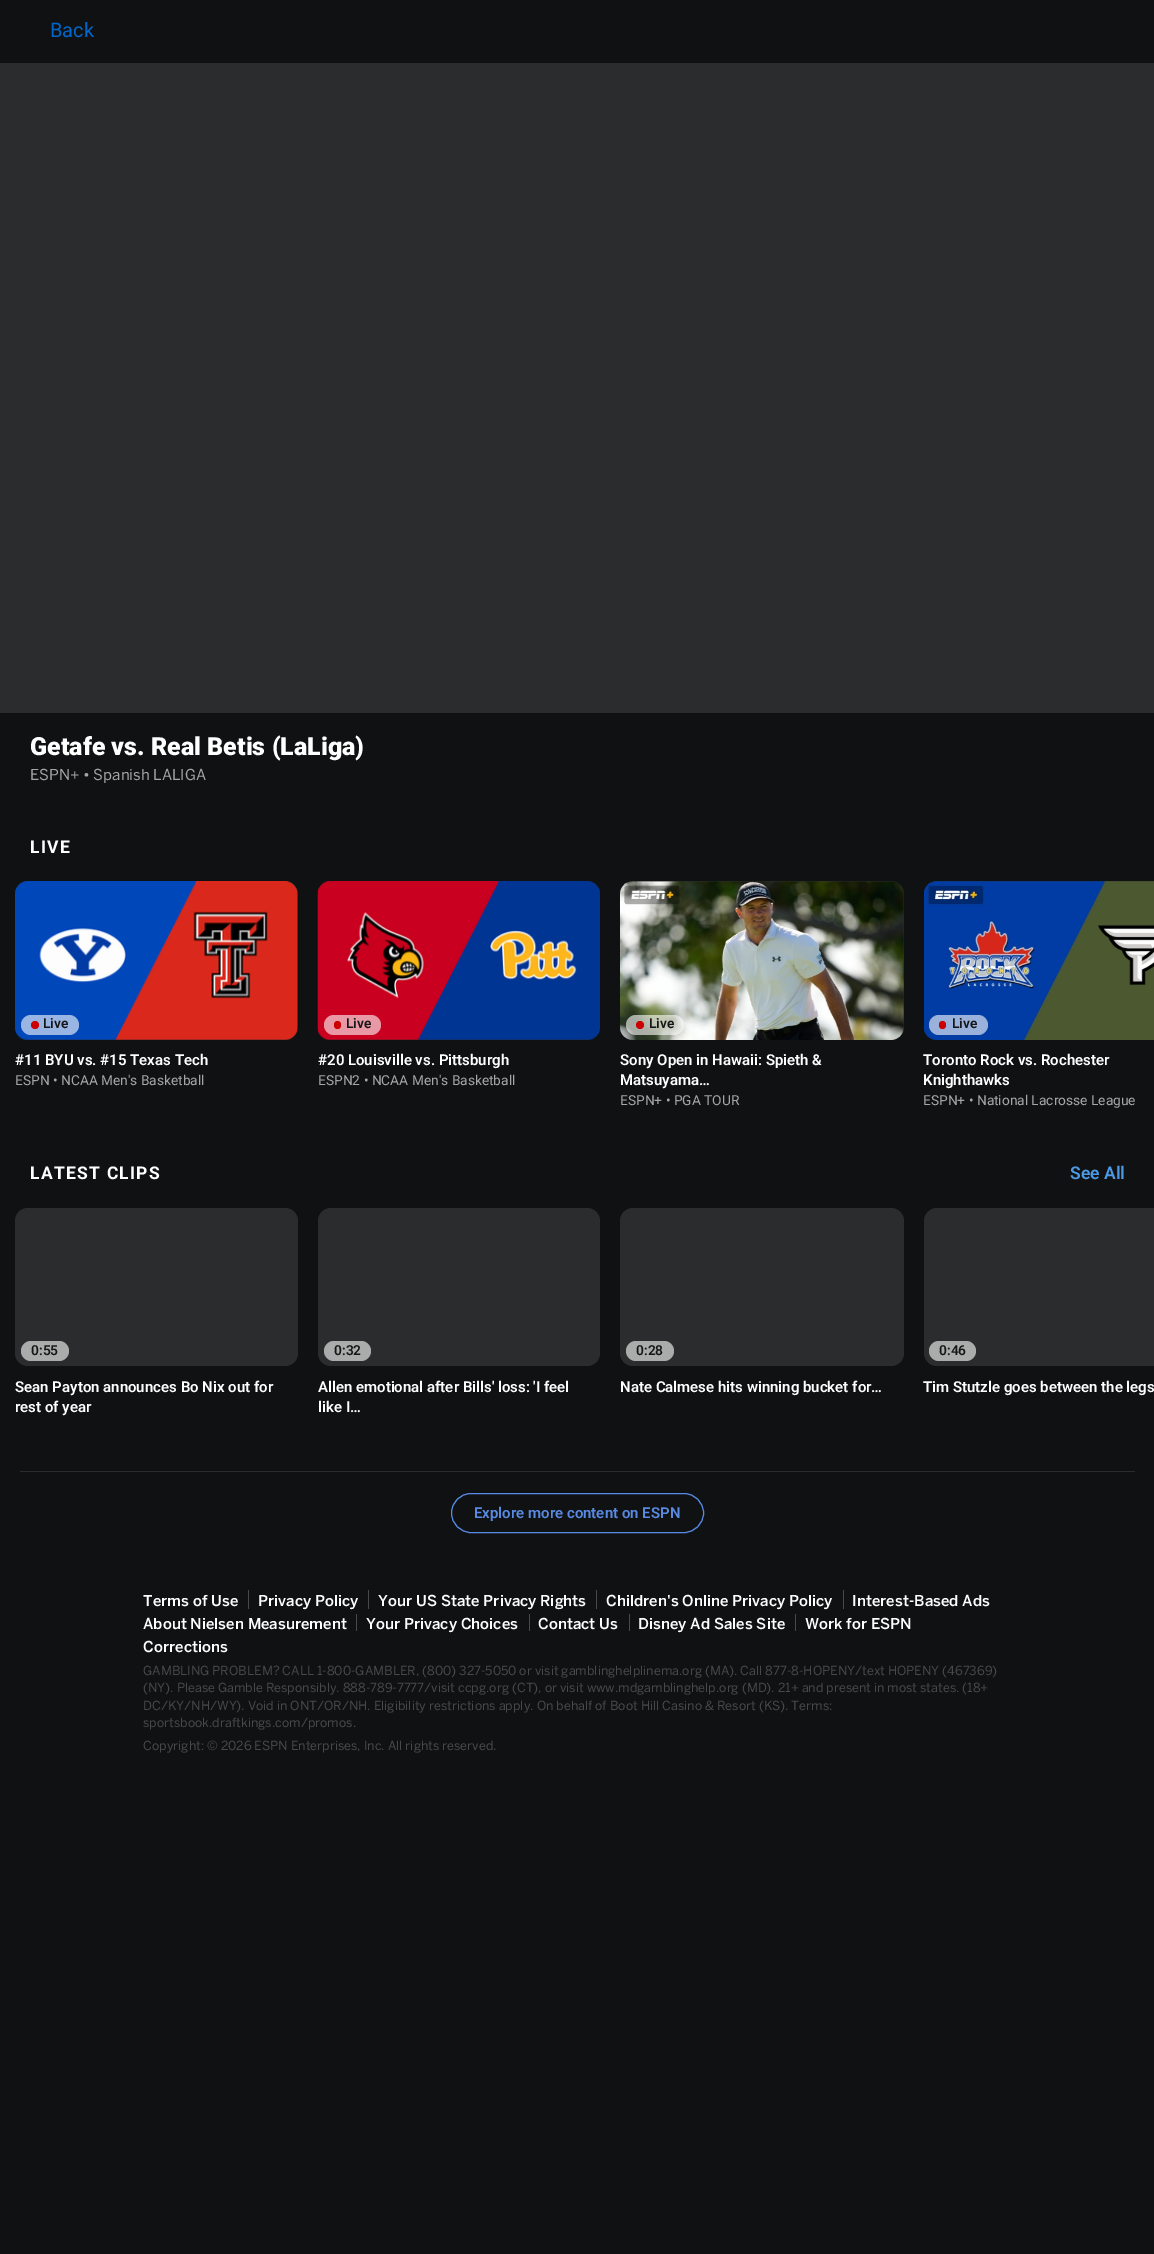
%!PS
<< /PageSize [1154 2254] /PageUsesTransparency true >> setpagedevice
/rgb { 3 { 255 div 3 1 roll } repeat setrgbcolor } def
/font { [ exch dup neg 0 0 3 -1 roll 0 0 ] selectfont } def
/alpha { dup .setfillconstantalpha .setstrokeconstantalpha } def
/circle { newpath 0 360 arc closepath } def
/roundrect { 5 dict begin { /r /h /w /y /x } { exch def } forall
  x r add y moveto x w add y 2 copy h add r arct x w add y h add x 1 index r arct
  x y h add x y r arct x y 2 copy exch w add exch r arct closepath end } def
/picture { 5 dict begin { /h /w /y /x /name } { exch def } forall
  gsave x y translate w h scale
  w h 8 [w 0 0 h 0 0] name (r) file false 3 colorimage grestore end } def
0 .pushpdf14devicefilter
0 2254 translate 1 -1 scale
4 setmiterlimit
16 17 19 rgb
0 0 1154 2254 rectfill
43 44 45 rgb
0 63 1154 650 rectfill
15 881 283 159 13 roundrect fill
(img/1.rgb) 15 881 283 159 picture
153 181 227 rgb
21 1015 58 20 10 roundrect fill
204 0 0 rgb
35 1025 4 circle fill
43 44 45 rgb
318 881 282 159 13 roundrect fill
(img/2.rgb) 317 881 283 159 picture
233 153 165 rgb
324 1015 57 20 10 roundrect fill
204 0 0 rgb
334 1021 7 8 3.5 roundrect fill
43 44 45 rgb
620 881 284 159 13 roundrect fill
(img/3.rgb) 620 881 284 159 picture
0.6 alpha
255 255 255 rgb
626 1015 58 20 10 roundrect fill
1 alpha
204 0 0 rgb
640 1025 4 circle fill
43 44 45 rgb
937 881 moveto 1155 881 lineto 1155 1040 lineto 937 1040 lineto 930 1040 924 1034 924 1027 curveto 924 894 lineto 924 887 930 881 937 881 curveto closepath fill
(img/4.rgb) 924 881 230 159 picture
153 177 219 rgb
929 1015 59 20 10 roundrect fill
204 0 0 rgb
939 1021 7 8 3.5 roundrect fill
43 44 45 rgb
15 1208 283 158 13 roundrect fill
170 171 171 rgb
21 1341 48 20 10 roundrect fill
43 44 45 rgb
318 1208 282 158 13 roundrect fill
170 171 171 rgb
324 1341 47 20 10 roundrect fill
43 44 45 rgb
620 1208 284 158 13 roundrect fill
170 171 171 rgb
626 1341 48 20 10 roundrect fill
43 44 45 rgb
937 1208 moveto 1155 1208 lineto 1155 1366 lineto 937 1366 lineto 930 1366 924 1360 924 1353 curveto 924 1221 lineto 924 1214 930 1208 937 1208 curveto closepath fill
170 171 171 rgb
929 1341 47 20 10 roundrect fill
43 44 45 rgb
20 1471 1115 1 rectfill
88 138 228 rgb
451.5 1493.5 252 39 19.5 roundrect stroke
[
  [248 1590 1 19 72 73 74]
  [368 1590 1 19 72 73 74]
  [596 1590 1 19 72 73 74]
  [843 1590 1 19 72 73 74]
  [356 1614 1 17 72 73 74]
  [529 1614 1 17 72 73 74]
  [629 1614 1 17 72 73 74]
  [795 1614 1 17 72 73 74]
] { aload pop rgb rectfill } forall
/Roboto-Regular 20 font
0 102 204 rgb
50 37 moveto (Back) show
/Roboto-Black 25 font
255 255 255 rgb
30 755 moveto (Getafe vs. Real Betis \(LaLiga\)) show
/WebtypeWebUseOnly-Regular 15 font
165 166 167 rgb
30 780 moveto (ESPN+ • Spanish LALIGA) show
/Roboto-Bold 17.5 font
255 255 255 rgb
30 853 moveto 1.25 0 (LIVE) ashow
/Roboto-SemiBold 13.75 font
21 22 23 rgb
43 1028 moveto (Live) show
/Roboto-SemiBold 15 font
255 255 255 rgb
15 1065 moveto (#11 BYU vs. #15 Texas Tech) show
/Roboto-Regular 13.75 font
165 166 167 rgb
15 1085 moveto (ESPN • NCAA Men's Basketball) show
/Roboto-SemiBold 13.75 font
21 22 23 rgb
346 1028 moveto (Live) show
/Roboto-SemiBold 15 font
255 255 255 rgb
318 1065 moveto (#20 Louisville vs. Pittsburgh) show
/Roboto-Regular 13.75 font
165 166 167 rgb
318 1085 moveto (ESPN2 • NCAA Men's Basketball) show
/Roboto-SemiBold 13.75 font
21 22 23 rgb
649 1028 moveto (Live) show
/Roboto-SemiBold 15 font
255 255 255 rgb
620 1065 moveto (Sony Open in Hawaii: Spieth &) show
620 1085 moveto (Matsuyama…) show
/Roboto-Regular 13.75 font
165 166 167 rgb
620 1105 moveto (ESPN+ • PGA TOUR) show
/Roboto-SemiBold 13.75 font
21 22 23 rgb
952 1028 moveto (Live) show
/Roboto-SemiBold 15 font
255 255 255 rgb
923 1065 moveto (Toronto Rock vs. Rochester) show
923 1085 moveto (Knighthawks) show
/Roboto-Regular 13.75 font
165 166 167 rgb
923 1105 moveto (ESPN+ • National Lacrosse League) show
/Roboto-Bold 17.5 font
255 255 255 rgb
30 1179 moveto 1.25 0 (LATEST CLIPS) ashow
/Roboto-SemiBold 17.5 font
76 153 230 rgb
1070 1179 moveto (See All) show
/Roboto-SemiBold 13.75 font
21 22 23 rgb
31 1355 moveto (0:55) show
/Roboto-SemiBold 15 font
255 255 255 rgb
15 1392 moveto (Sean Payton announces Bo Nix out for) show
15 1412 moveto (rest of year) show
/Roboto-SemiBold 13.75 font
21 22 23 rgb
334 1355 moveto (0:32) show
/Roboto-SemiBold 15 font
255 255 255 rgb
318 1392 moveto (Allen emotional after Bills' loss: 'I feel) show
318 1412 moveto (like I…) show
/Roboto-SemiBold 13.75 font
21 22 23 rgb
636 1355 moveto (0:28) show
/Roboto-SemiBold 15 font
255 255 255 rgb
620 1392 moveto (Nate Calmese hits winning bucket for…) show
/Roboto-SemiBold 13.75 font
21 22 23 rgb
939 1355 moveto (0:46) show
/Roboto-SemiBold 15 font
255 255 255 rgb
923 1392 moveto (Tim Stutzle goes between the legs) show
88 138 228 rgb
474 1518 moveto (Explore more content on ESPN) show
/WebtypeWebUseOnly-Medium 15 font
255 255 255 rgb
[
  [(Terms of Use) 143 1606]
  [(Privacy Policy) 258 1606]
  [(Your US State Privacy Rights) 378 1606]
  [(Children's Online Privacy Policy) 606 1606]
  [(Interest-Based Ads) 852 1606]
  [(About Nielsen Measurement) 143 1629]
  [(Your Privacy Choices) 366 1629]
  [(Contact Us) 538 1629]
  [(Disney Ad Sales Site) 638 1629]
  [(Work for ESPN) 805 1629]
  [(Corrections) 143 1652]
] { aload pop moveto show } forall
/WebtypeWebUseOnly-Regular 12.5 font
72 73 74 rgb
[
  [(GAMBLING PROBLEM? CALL 1-800-GAMBLER, \(800\) 327-5050 or visit gamblinghelplinema.org \(MA\). Call 877-8-HOPENY/text HOPENY \(467369\)) 143 1675]
  [(\(NY\). Please Gamble Responsibly. 888-789-7777/visit ccpg.org \(CT\), or visit www.mdgamblinghelp.org \(MD\). 21+ and present in most states. \(18+) 143 1692]
  [(DC/KY/NH/WY\). Void in ONT/OR/NH. Eligibility restrictions apply. On behalf of Boot Hill Casino & Resort \(KS\). Terms:) 143 1710]
  [(sportsbook.draftkings.com/promos.) 143 1727]
  [(Copyright: © 2026 ESPN Enterprises, Inc. All rights reserved.) 143 1750]
] { aload pop moveto show } forall
.poppdf14devicefilter showpage
